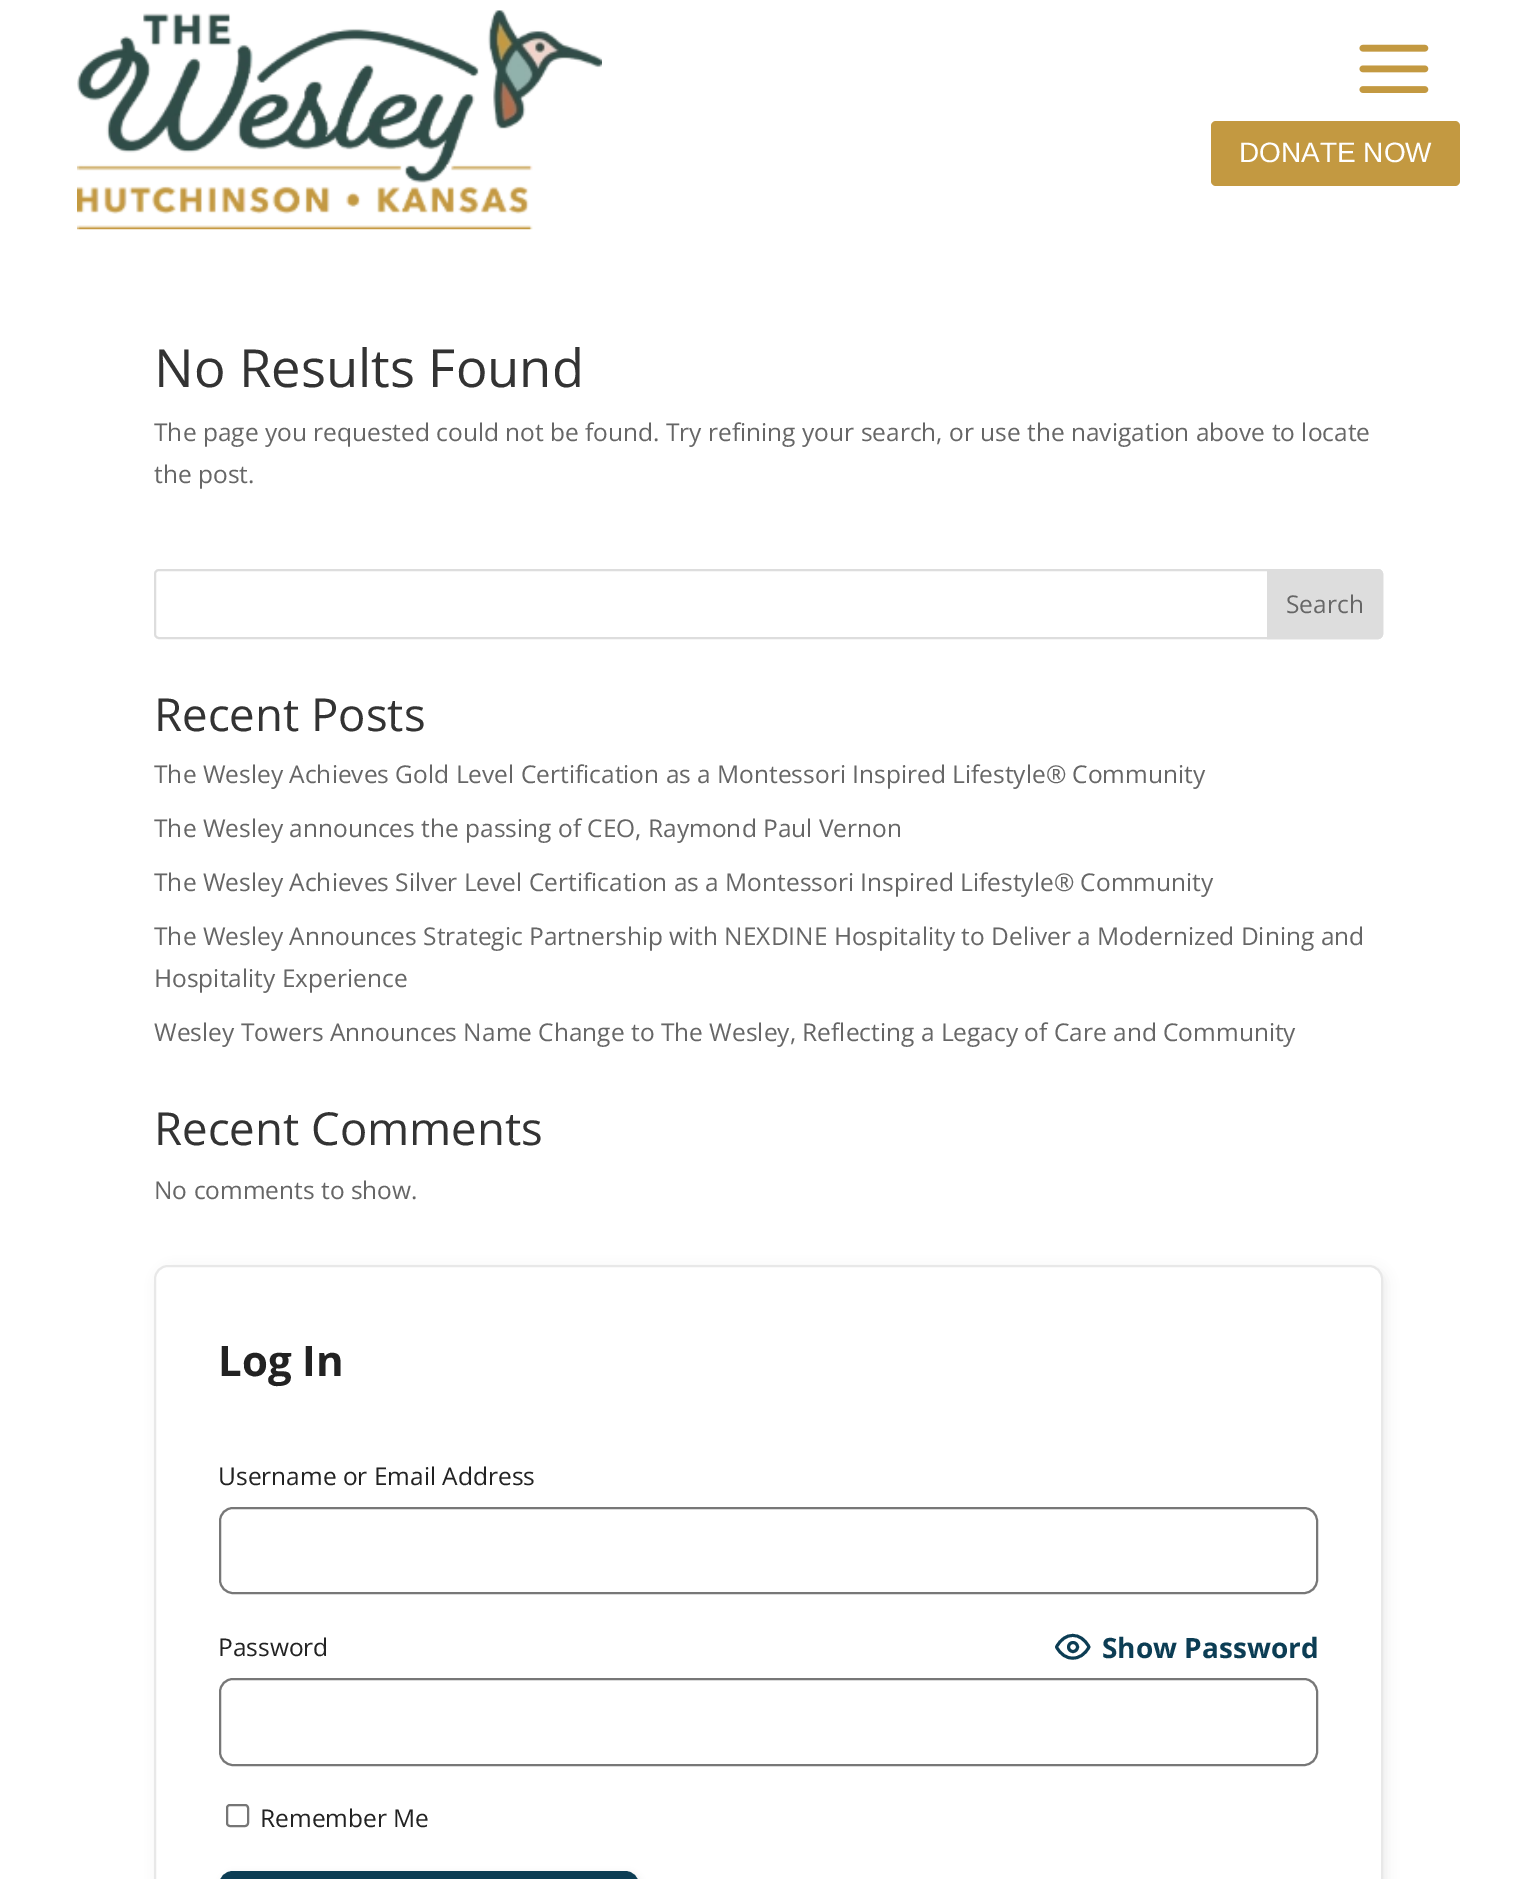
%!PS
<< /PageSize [1535 1879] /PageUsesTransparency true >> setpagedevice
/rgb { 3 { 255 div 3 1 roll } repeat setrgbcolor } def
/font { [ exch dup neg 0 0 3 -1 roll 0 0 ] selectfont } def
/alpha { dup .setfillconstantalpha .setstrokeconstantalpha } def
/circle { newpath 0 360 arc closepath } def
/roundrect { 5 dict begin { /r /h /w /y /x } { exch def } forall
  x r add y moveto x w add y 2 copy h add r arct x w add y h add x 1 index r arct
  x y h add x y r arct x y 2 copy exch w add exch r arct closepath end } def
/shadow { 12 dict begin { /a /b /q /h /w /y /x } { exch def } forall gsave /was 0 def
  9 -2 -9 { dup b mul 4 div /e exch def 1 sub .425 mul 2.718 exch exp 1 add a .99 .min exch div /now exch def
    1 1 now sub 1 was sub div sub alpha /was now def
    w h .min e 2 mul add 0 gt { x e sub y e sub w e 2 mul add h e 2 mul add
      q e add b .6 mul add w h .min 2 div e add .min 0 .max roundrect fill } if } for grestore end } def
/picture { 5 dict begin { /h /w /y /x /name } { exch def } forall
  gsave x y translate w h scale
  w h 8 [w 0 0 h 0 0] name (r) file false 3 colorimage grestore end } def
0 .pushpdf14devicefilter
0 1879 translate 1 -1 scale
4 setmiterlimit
255 255 255 rgb
0 0 1535 1879 rectfill
(img/1.rgb) 77 10 525 220 picture
(img/2.rgb) 1359 44 70 49 picture
195 153 65 rgb
1211 121 249 65 5 roundrect fill
221 221 221 rgb
2 setlinewidth
155 570 1227 68 4 roundrect stroke
1268 570 moveto 1378 570 lineto 1380 570 1382 572 1382 574 curveto 1382 634 lineto 1382 636 1380 638 1378 638 curveto 1268 638 lineto closepath gsave fill grestore
stroke
0 0 0 rgb
158 1269 1228 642 14 6 0.07 shadow
255 255 255 rgb
155 1266 1227 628 13 roundrect gsave fill grestore
232 232 232 rgb
stroke
119 119 119 rgb
220 1508 1097 85 13 roundrect stroke
12 61 84 rgb
2.9 setlinewidth
1 setlinecap
1 setlinejoin
1056.5 1647 moveto 1064.5 1631.5 1081 1631.5 1089 1647 curveto 1081 1662 1064.5 1662 1056.5 1647 curveto closepath stroke
0 setlinecap
0 setlinejoin
1073 1647 4.5 circle stroke
119 119 119 rgb
2 setlinewidth
220 1679 1097 86 13 roundrect stroke
118 118 118 rgb
227 1805 21 21 3 roundrect stroke
0 0 0 rgb
221 1874 420 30 14 3.5 0.1 shadow
12 61 84 rgb
220 1872 418 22 13 roundrect gsave fill grestore
stroke
/LiberationSans-Regular 28 font
255 255 255 rgb
1239 162 moveto (DONATE NOW) show
/OpenSans-Regular 52.5 font
51 51 51 rgb
154 387 moveto (No Results Found) show
/OpenSans-Regular 24.5 font
102 102 102 rgb
[
  [(The page you requested could not be found. Try refining your search, or use the navigation above to locate) 154 441]
  [(the post.) 154 483]
  [(Search) 1286 613]
] { aload pop moveto show } forall
/OpenSans-Regular 45.5 font
51 51 51 rgb
154 731 moveto (Recent Posts) show
/OpenSans-Regular 24.5 font
102 102 102 rgb
[
  [(The Wesley Achieves Gold Level Certification as a Montessori Inspired Lifestyle® Community) 154 783]
  [(The Wesley announces the passing of CEO, Raymond Paul Vernon) 154 837]
  [(The Wesley Achieves Silver Level Certification as a Montessori Inspired Lifestyle® Community) 154 891]
  [(The Wesley Announces Strategic Partnership with NEXDINE Hospitality to Deliver a Modernized Dining and) 154 945]
  [(Hospitality Experience) 154 987]
  [(Wesley Towers Announces Name Change to The Wesley, Reflecting a Legacy of Care and Community) 154 1041]
] { aload pop moveto show } forall
/OpenSans-Regular 45.5 font
51 51 51 rgb
154 1145 moveto (Recent Comments) show
/OpenSans-Regular 24.5 font
102 102 102 rgb
154 1199 moveto (No comments to show.) show
/OpenSans-Bold 42 font
34 34 34 rgb
218 1376 moveto (Log In) show
/OpenSans-Regular 24.5 font
218 1485 moveto (Username or Email Address) show
218 1656 moveto (Password) show
/OpenSans-Bold 28 font
12 61 84 rgb
1102 1658 moveto (Show Password) show
/OpenSans-Regular 24.5 font
34 34 34 rgb
260 1827 moveto (Remember Me) show
.poppdf14devicefilter showpage
